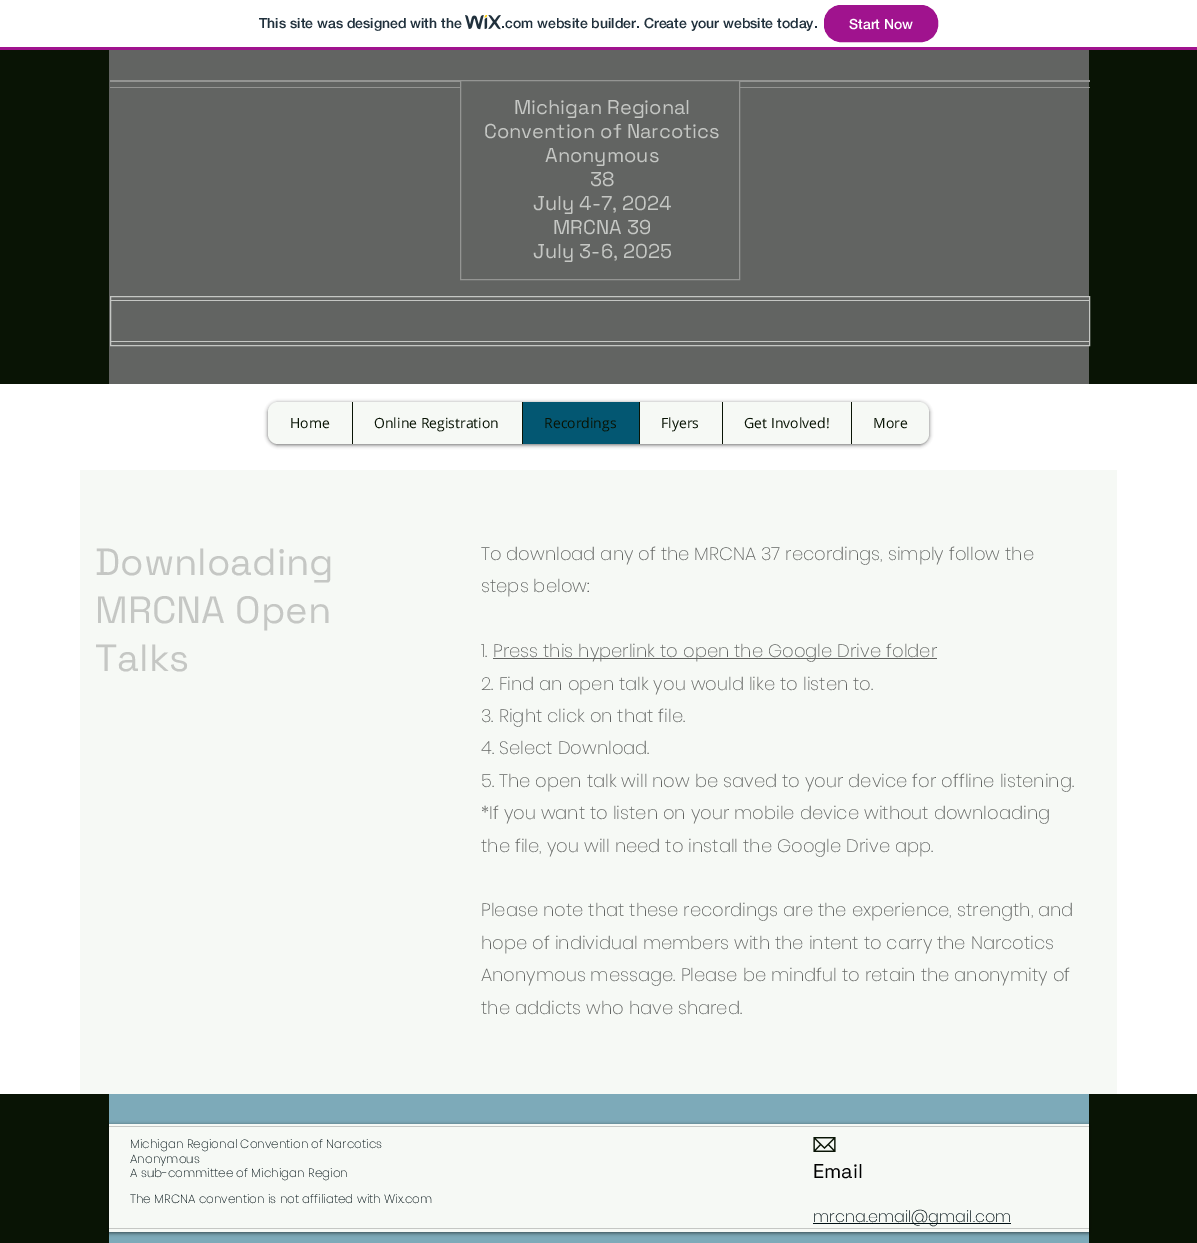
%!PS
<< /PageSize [1197 1243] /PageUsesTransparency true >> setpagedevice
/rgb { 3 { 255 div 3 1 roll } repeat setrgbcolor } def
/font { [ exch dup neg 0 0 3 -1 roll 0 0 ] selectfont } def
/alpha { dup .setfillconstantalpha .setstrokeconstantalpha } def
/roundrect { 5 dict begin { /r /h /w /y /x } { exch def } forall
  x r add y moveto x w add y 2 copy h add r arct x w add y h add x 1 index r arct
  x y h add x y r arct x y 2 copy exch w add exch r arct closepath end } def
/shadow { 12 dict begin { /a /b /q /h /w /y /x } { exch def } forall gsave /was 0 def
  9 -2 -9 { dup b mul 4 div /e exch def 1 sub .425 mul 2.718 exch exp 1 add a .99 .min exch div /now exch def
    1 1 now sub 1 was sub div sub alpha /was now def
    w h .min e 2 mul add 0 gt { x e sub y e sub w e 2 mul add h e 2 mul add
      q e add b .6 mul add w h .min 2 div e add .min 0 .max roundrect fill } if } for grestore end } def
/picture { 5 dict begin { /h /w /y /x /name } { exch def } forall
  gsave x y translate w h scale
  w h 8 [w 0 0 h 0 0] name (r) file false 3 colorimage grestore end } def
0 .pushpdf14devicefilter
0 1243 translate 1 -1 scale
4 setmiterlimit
255 255 255 rgb
0 0 1197 1243 rectfill
160 19 142 rgb
0 47 1197 3 rectfill
(img/1.rgb) 465 15 36 15 picture
824.5 5.5 113 36 16.5 roundrect gsave fill grestore
stroke
[
  [0 50 1197 334 9 20 5]
  [109 50 980 334 98 100 98]
  [110 80 350 2 148 149 147]
  [110 87 350 1 148 149 147]
  [740 80 350 2 148 149 147]
  [740 87 350 1 148 149 147]
] { aload pop rgb rectfill } forall
460.5 80.5 279 199 rectstroke
197 199 196 rgb
110.5 296.5 979 49 rectstroke
110 300 980 1 rectfill
110 341 980 1 rectfill
0 0 0 rgb
268 403 661 42 10 2 0.6 shadow
246 249 245 rgb
268 402 661 42 10 roundrect fill
[
  [352 402 1 42 9 20 5]
  [523 402 116 42 3 87 114]
  [522 402 1 42 9 20 5]
  [639 402 1 42 9 20 5]
  [722 402 1 42 9 20 5]
  [851 402 1 42 9 20 5]
  [80 470 1037 624 246 249 245]
  [493 658 444 1 98 100 98]
  [0 1094 1197 149 9 20 5]
  [109 1094 980 149 125 170 185]
] { aload pop rgb rectfill } forall
0 0 0 rgb
109 1125 980 108 0 2 0.6 shadow
246 249 245 rgb
109 1124 980 108 rectfill
197 199 196 rgb
109 1126 980 1 rectfill
(img/2.rgb) 813 1137 23 15 picture
1 16 20 rgb
813 1223 198 1 rectfill
197 199 196 rgb
109 1228 980 1 rectfill
/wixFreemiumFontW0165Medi-Medium 14 font
32 48 60 rgb
259 28 moveto (This site was designed with the) show
501 28 moveto (.com website builder. Create your website today.) show
255 255 255 rgb
849 29 moveto (Start Now) show
/SpaceGrotesk-Regular 20 font
197 199 196 rgb
[
  [(Michigan Regional) 514 114]
  [(Convention of Narcotics) 484 138]
  [(Anonymous) 545 162]
  [(38) 590 186]
  [(July 4-7, 2024) 533 210]
  [(MRCNA 39) 553 234]
  [(July 3-6, 2025) 533 258]
] { aload pop moveto show } forall
/OpenSans-Regular 14 font
9 20 5 rgb
[
  [(Home) 290 428]
  [(Online Registration) 374 428]
  [(Recordings) 544 428]
  [(Flyers) 661 428]
  [(Get Involved!) 744 428]
  [(More) 873 428]
] { aload pop moveto show } forall
/SpaceGrotesk-Regular 38 font
197 199 196 rgb
[
  [(Downloading) 95 575]
  [(MRCNA Open) 95 623]
  [(Talks) 95 671]
] { aload pop moveto show } forall
/Poppins-ExtraLight 18 font
98 100 98 rgb
[
  [(To download any of the MRCNA 37 recordings, simply follow the) 481 560]
  [(steps below:) 481 592]
  [(1.) 481 657]
  [(Press this hyperlink to open the Google Drive folder) 493 657]
  [(2. Find an open talk you would like to listen to.) 481 690]
  [(3. Right click on that file.) 481 722]
  [(4. Select Download.) 481 754]
  [(5. The open talk will now be saved to your device for offline listening.) 481 787]
  [(*If you want to listen on your mobile device without downloading) 481 819]
  [(the file, you will need to install the Google Drive app.) 481 852]
  [(Please note that these recordings are the experience, strength, and) 481 916]
  [(hope of individual members with the intent to carry the Narcotics) 481 949]
  [(Anonymous message. Please be mindful to retain the anonymity of) 481 981]
  [(the addicts who have shared.) 481 1014]
] { aload pop moveto show } forall
/Poppins-ExtraLight 12 font
1 16 20 rgb
[
  [(Michigan Regional Convention of Narcotics) 130 1148]
  [(Anonymous) 130 1163]
  [(A sub-committee of Michigan Region) 130 1177]
] { aload pop moveto show } forall
/SpaceGrotesk-Regular 20 font
0 0 0 rgb
813 1178 moveto (Email) show
/Poppins-ExtraLight 12 font
1 16 20 rgb
130 1203 moveto (The MRCNA convention is not affiliated with Wix.com) show
/Poppins-ExtraLight 16 font
813 1222 moveto (mrcna.email@gmail.com) show
.poppdf14devicefilter showpage
